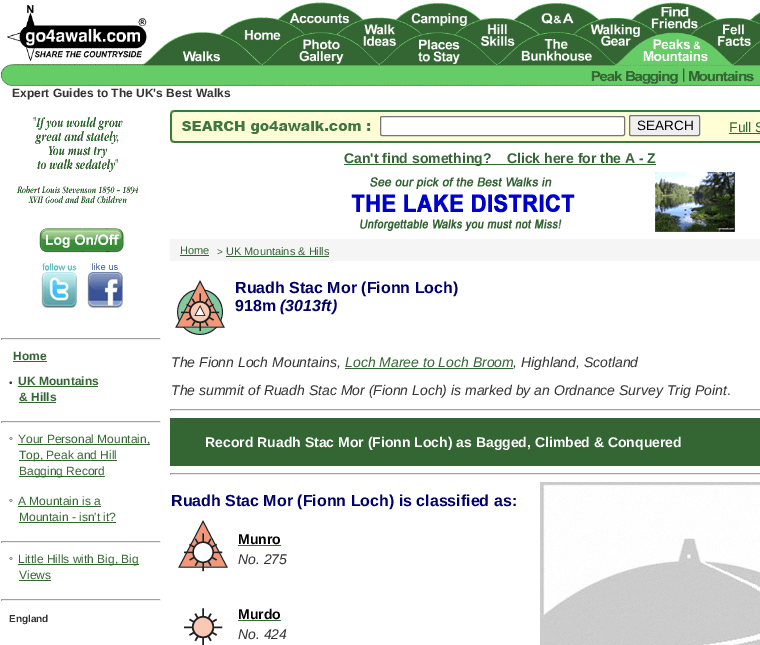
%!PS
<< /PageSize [760 645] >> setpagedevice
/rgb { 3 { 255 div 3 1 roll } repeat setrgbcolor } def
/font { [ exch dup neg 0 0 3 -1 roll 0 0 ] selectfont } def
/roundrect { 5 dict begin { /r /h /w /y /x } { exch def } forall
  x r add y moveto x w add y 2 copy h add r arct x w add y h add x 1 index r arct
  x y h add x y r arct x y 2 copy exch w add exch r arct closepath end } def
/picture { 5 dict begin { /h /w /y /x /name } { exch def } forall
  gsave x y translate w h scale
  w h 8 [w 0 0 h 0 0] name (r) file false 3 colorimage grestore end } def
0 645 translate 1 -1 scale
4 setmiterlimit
255 255 255 rgb
0 0 760 645 rectfill
(img/1.rgb) 1 2 759 84 picture
(img/2.rgb) 170 110 590 33 picture
380.5 116.5 244 19 1.5 roundrect gsave fill grestore
118 118 118 rgb
stroke
239 239 239 rgb
629.5 115.5 70 20 1.5 roundrect gsave fill grestore
118 118 118 rgb
stroke
51 102 51 rgb
729 133 31 1 rectfill
344 164 312 1 rectfill
(img/3.rgb) 351 172 384 60 picture
(img/4.rgb) 17 117 121 87 picture
(img/5.rgb) 39 228 85 25 picture
(img/6.rgb) 41 263 36 45 picture
(img/7.rgb) 87 263 36 45 picture
[
  [1 338 160 1 159 159 159]
  [160 338 1 2 238 238 238]
  [1 339 160 1 238 238 238]
  [1 338 1 2 159 159 159]
  [13 361 34 1 51 102 51]
  [18 386 80 1 51 102 51]
  [19 402 37 1 51 102 51]
  [1 421 160 1 159 159 159]
  [160 421 1 2 238 238 238]
  [1 422 160 1 238 238 238]
  [1 421 1 2 159 159 159]
  [18 444 132 1 51 102 51]
  [19 460 98 1 51 102 51]
  [19 476 86 1 51 102 51]
  [18 506 83 1 51 102 51]
  [19 522 97 1 51 102 51]
  [1 541 160 1 159 159 159]
  [160 541 1 2 238 238 238]
  [1 542 160 1 238 238 238]
  [1 541 1 2 159 159 159]
  [18 564 121 1 51 102 51]
  [19 580 32 1 51 102 51]
  [1 599 160 1 159 159 159]
  [160 599 1 2 238 238 238]
  [1 600 160 1 238 238 238]
  [1 599 1 2 159 159 159]
  [170 239 590 22 245 245 245]
  [180 255 29 1 51 102 51]
  [226 256 103 1 51 102 51]
] { aload pop rgb rectfill } forall
(img/8.rgb) 175 280 50 55 picture
[
  [345 368 168 1 51 102 51]
  [170 409 590 1 159 159 159]
  [170 410 590 1 238 238 238]
  [170 409 1 2 159 159 159]
  [170 418 590 48 51 102 51]
  [170 473 590 1 159 159 159]
  [170 474 590 1 238 238 238]
  [170 473 1 2 159 159 159]
] { aload pop rgb rectfill } forall
(img/9.rgb) 178 520 50 52 picture
51 102 51 rgb
238 545 43 1 rectfill
(img/10.rgb) 184 608 39 37 picture
238 620 43 1 rectfill
(img/11.rgb) 540 482 220 163 picture
/LiberationSans-Bold 12 font
51 51 51 rgb
12 97 moveto (Expert Guides to The UK's Best Walks) show
/LiberationSans-Regular 13.5 font
0 0 0 rgb
637 130 moveto (SEARCH) show
/LiberationSans-Regular 14 font
51 102 51 rgb
729 132 moveto (Full S) show
/LiberationSans-Bold 14 font
344 163 moveto (Can't find something?    Click here for the A - Z) show
/LiberationSans-Bold 12 font
13 360 moveto (Home) show
/LiberationSans-Regular 10 font
51 51 51 rgb
9 386 moveto (•) show
/LiberationSans-Bold 12 font
51 102 51 rgb
18 385 moveto (UK Mountains) show
19 401 moveto (& Hills) show
/LiberationSans-Regular 10 font
51 51 51 rgb
9 444 moveto (°) show
/LiberationSans-Regular 12 font
51 102 51 rgb
[
  [(Your Personal Mountain,) 18 443]
  [(Top, Peak and Hill) 19 459]
  [(Bagging Record) 19 475]
] { aload pop moveto show } forall
/LiberationSans-Regular 10 font
51 51 51 rgb
9 506 moveto (°) show
/LiberationSans-Regular 12 font
51 102 51 rgb
18 505 moveto (A Mountain is a) show
19 521 moveto (Mountain - isn't it?) show
/LiberationSans-Regular 10 font
51 51 51 rgb
9 564 moveto (°) show
/LiberationSans-Regular 12 font
51 102 51 rgb
18 563 moveto (Little Hills with Big, Big) show
19 579 moveto (Views) show
/LiberationSans-Bold 10 font
51 51 51 rgb
9 622 moveto (England) show
/LiberationSans-Regular 11 font
51 102 51 rgb
180 254 moveto (Home) show
/LiberationSans-Regular 10 font
217 255 moveto (>) show
/LiberationSans-Regular 11 font
226 255 moveto (UK Mountains & Hills) show
/LiberationSans-Bold 16 font
0 0 102 rgb
235 293 moveto (Ruadh Stac Mor \(Fionn Loch\)) show
235 311 moveto (918m) show
/LiberationSans-BoldItalic 16 font
280 311 moveto (\(3013ft\)) show
/LiberationSans-Italic 14 font
51 51 51 rgb
171 367 moveto (The Fionn Loch Mountains,) show
51 102 51 rgb
345 367 moveto (Loch Maree to Loch Broom) show
51 51 51 rgb
513 367 moveto (, Highland, Scotland) show
171 395 moveto (The summit of Ruadh Stac Mor \(Fionn Loch\) is marked by an Ordnance Survey Trig Point) show
/LiberationSans-Regular 14 font
727 395 moveto (.) show
/LiberationSans-Bold 14 font
255 255 255 rgb
205 447 moveto (Record Ruadh Stac Mor \(Fionn Loch\) as Bagged, Climbed & Conquered) show
/LiberationSans-Bold 16 font
0 0 102 rgb
171 506 moveto (Ruadh Stac Mor \(Fionn Loch\) is classified as:) show
/LiberationSans-Bold 14 font
0 0 0 rgb
238 544 moveto (Munro) show
/LiberationSans-Italic 14 font
51 51 51 rgb
238 564 moveto (No. 275) show
/LiberationSans-Bold 14 font
0 0 0 rgb
238 619 moveto (Murdo) show
/LiberationSans-Italic 14 font
51 51 51 rgb
238 639 moveto (No. 424) show
showpage
